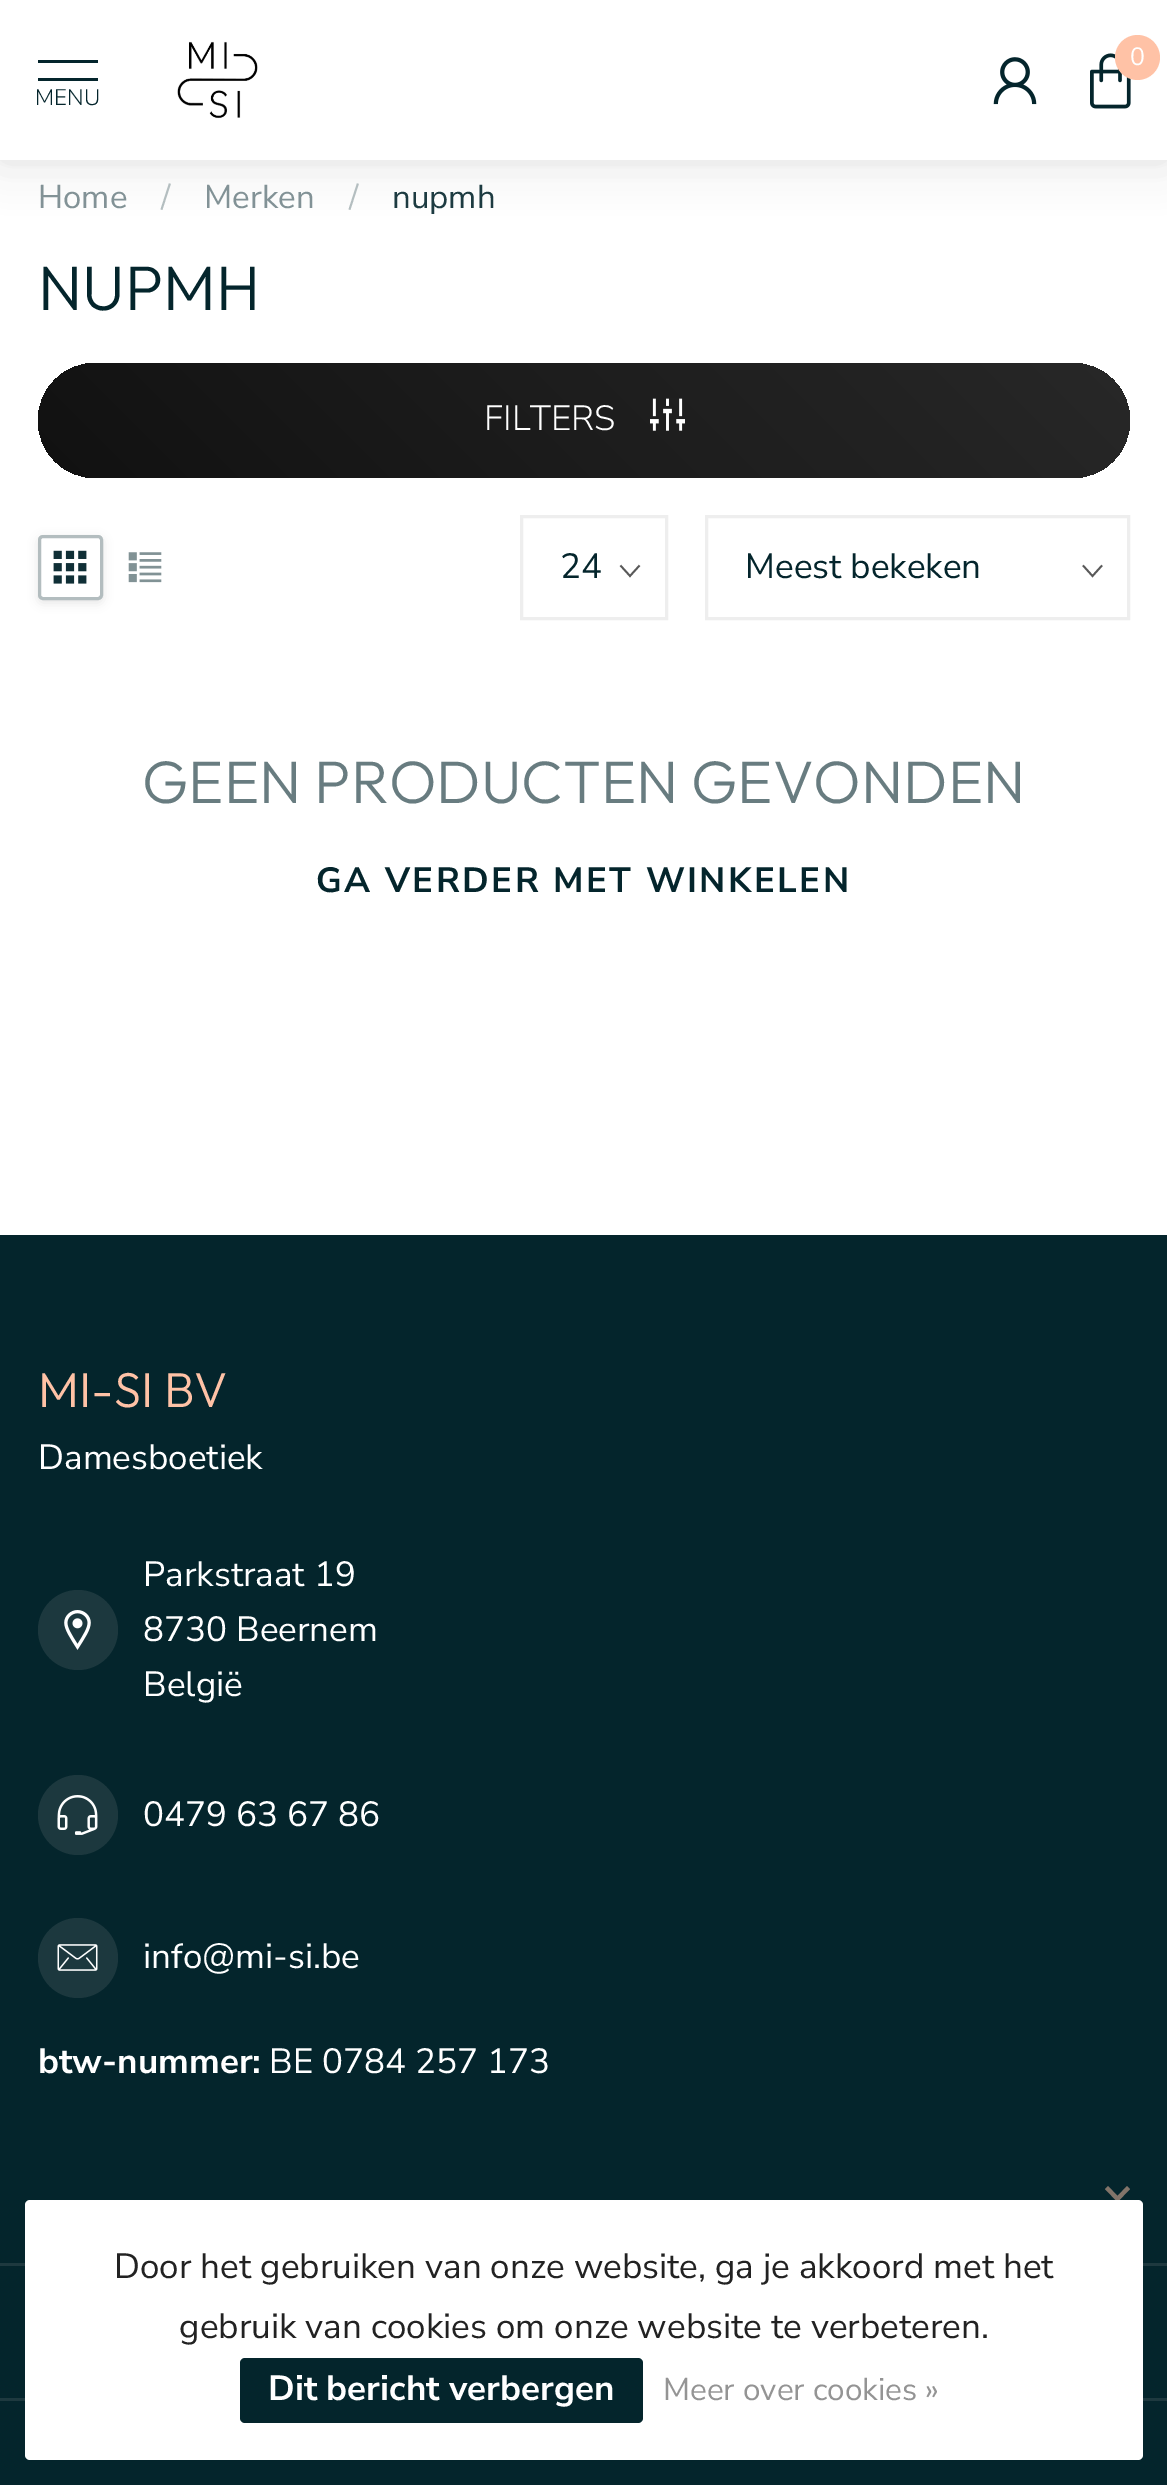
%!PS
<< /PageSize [1167 2485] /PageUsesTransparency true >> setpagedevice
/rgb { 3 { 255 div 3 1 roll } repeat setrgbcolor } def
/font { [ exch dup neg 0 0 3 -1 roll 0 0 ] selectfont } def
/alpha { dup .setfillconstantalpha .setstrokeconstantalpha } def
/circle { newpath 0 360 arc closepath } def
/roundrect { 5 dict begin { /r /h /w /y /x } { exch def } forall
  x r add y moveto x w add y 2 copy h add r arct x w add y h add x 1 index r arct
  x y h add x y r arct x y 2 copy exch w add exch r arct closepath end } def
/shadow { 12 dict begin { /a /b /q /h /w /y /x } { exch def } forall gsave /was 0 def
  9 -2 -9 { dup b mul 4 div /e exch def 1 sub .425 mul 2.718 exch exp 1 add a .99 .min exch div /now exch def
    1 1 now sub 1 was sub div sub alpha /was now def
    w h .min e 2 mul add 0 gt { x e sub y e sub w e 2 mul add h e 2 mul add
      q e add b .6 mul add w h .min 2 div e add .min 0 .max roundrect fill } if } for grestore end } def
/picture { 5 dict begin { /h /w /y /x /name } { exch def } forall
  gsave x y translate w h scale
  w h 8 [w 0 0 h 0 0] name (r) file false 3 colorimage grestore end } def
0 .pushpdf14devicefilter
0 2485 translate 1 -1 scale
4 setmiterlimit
255 255 255 rgb
0 0 1167 2485 rectfill
0 0 0 rgb
0 10 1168 138 0 27.5 0.08 shadow
0 -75 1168 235 0 25 0.07 shadow
255 255 255 rgb
0 0 1167 160 rectfill
(img/1.rgb) 177 41 81 78 picture
(img/2.rgb) 993 57 44 48 picture
(img/3.rgb) 1090 53 41 56 picture
255 194 166 rgb
1137.5 57.5 22.5 circle fill
4 37 44 rgb
38 60 60 3 rectfill
38 78 60 3 rectfill
gsave 38 363 1092 115 57.5 roundrect clip newpath
<< /ShadingType 2 /ColorSpace /DeviceRGB /Coords [282 722 886 118] /Extend [true true] /Function << /FunctionType 2 /Domain [0 1] /C0 [0.067 0.067 0.067] /C1 [0.157 0.157 0.157] /N 1 >> >> shfill grestore
(img/4.rgb) 650 398 35 33 picture
gsave
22 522 moveto 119 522 lineto 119 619 lineto 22 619 lineto closepath 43 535 moveto 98 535 lineto 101 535 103 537 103 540 curveto 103 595 lineto 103 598 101 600 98 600 curveto 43 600 lineto 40 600 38 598 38 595 curveto 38 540 lineto 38 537 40 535 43 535 curveto closepath eoclip newpath
0 0 0 rgb
38 538 65 65 5 5 0.1 shadow
grestore
179 189 191 rgb
3 setlinewidth
39.5 536.5 62 62 3.5 roundrect stroke
(img/5.rgb) 53 550 34 34 picture
(img/6.rgb) 128 552 34 31 picture
89 89 89 rgb
1.8 setlinewidth
639.5 565.5 moveto 630 576 lineto 620.5 565.5 lineto stroke
238 238 238 rgb
3 setlinewidth
521.5 516.5 145 102 rectstroke
89 89 89 rgb
1.8 setlinewidth
1102 565.5 moveto 1092.5 576 lineto 1083 565.5 lineto stroke
238 238 238 rgb
3 setlinewidth
706.5 516.5 422 102 rectstroke
4 37 44 rgb
0 1235 1167 1250 rectfill
28 56 62 rgb
78 1630 40 circle fill
(img/7.rgb) 64 1610 27 40 picture
78 1815 40 circle fill
(img/8.rgb) 57 1795 41 40 picture
78 1958 40 circle fill
(img/9.rgb) 57 1944 41 27 picture
30 57 63 rgb
0 2263 1167 3 rectfill
130 116 105 rgb
1105 2189 moveto 1108 2186 lineto 1117.5 2196 lineto 1127 2186 lineto 1130 2189 lineto 1117.5 2202 lineto closepath fill
30 57 63 rgb
0 2398 1167 3 rectfill
255 255 255 rgb
25 2200 1118 260 5 roundrect fill
4 37 44 rgb
240 2358 403 65 5 roundrect fill
/NunitoSans-Regular 25 font
255 255 255 rgb
1130 65 moveto (0) show
/NunitoSans-Light 22.5 font
4 37 44 rgb
35 105 moveto (MENU) show
/NunitoSans-Regular 33 font
130 146 150 rgb
38 208 moveto (Home) show
180 190 192 rgb
161 208 moveto (/) show
130 146 150 rgb
204 208 moveto (Merken) show
180 190 192 rgb
349 208 moveto (/) show
29 59 65 rgb
392 208 moveto (nupmh) show
/Outfit-Light 63 font
4 37 44 rgb
38 310 moveto (NUPMH) show
/NunitoSans-Light 35 font
255 255 255 rgb
484 430 moveto (FILTERS) show
/NunitoSans-Regular 35 font
4 37 44 rgb
560 578 moveto (24) show
745 578 moveto (Meest bekeken) show
/Outfit-Light 60 font
104 124 128 rgb
142 803 moveto (GEEN PRODUCTEN GEVONDEN) show
/NunitoSans-Bold 35 font
4 37 44 rgb
316 892 moveto 2.5 0 (GA VERDER MET WINKELEN) ashow
/Outfit-Light 49 font
255 194 166 rgb
38 1407 moveto (MI-SI BV) show
/NunitoSans-Regular 35 font
255 255 255 rgb
[
  [(Damesboetiek) 38 1469]
  [(Parkstraat 19) 143 1586]
  [(8730 Beernem) 143 1641]
  [(België) 143 1696]
  [(0479 63 67 86) 143 1826]
  [(info@mi-si.be) 143 1968]
] { aload pop moveto show } forall
/NunitoSans-Bold 35 font
38 2073 moveto (btw-nummer:) show
/NunitoSans-Regular 35 font
269 2073 moveto (BE 0784 257 173) show
34 34 34 rgb
114 2278 moveto (Door het gebruiken van onze website, ga je akkoord met het) show
179 2338 moveto (gebruik van cookies om onze website te verbeteren.) show
/NunitoSans-Bold 35 font
255 255 255 rgb
268 2400 moveto (Dit bericht verbergen) show
/NunitoSans-Regular 31.5 font
148 148 148 rgb
663 2400 moveto (Meer over cookies ») show
.poppdf14devicefilter showpage
